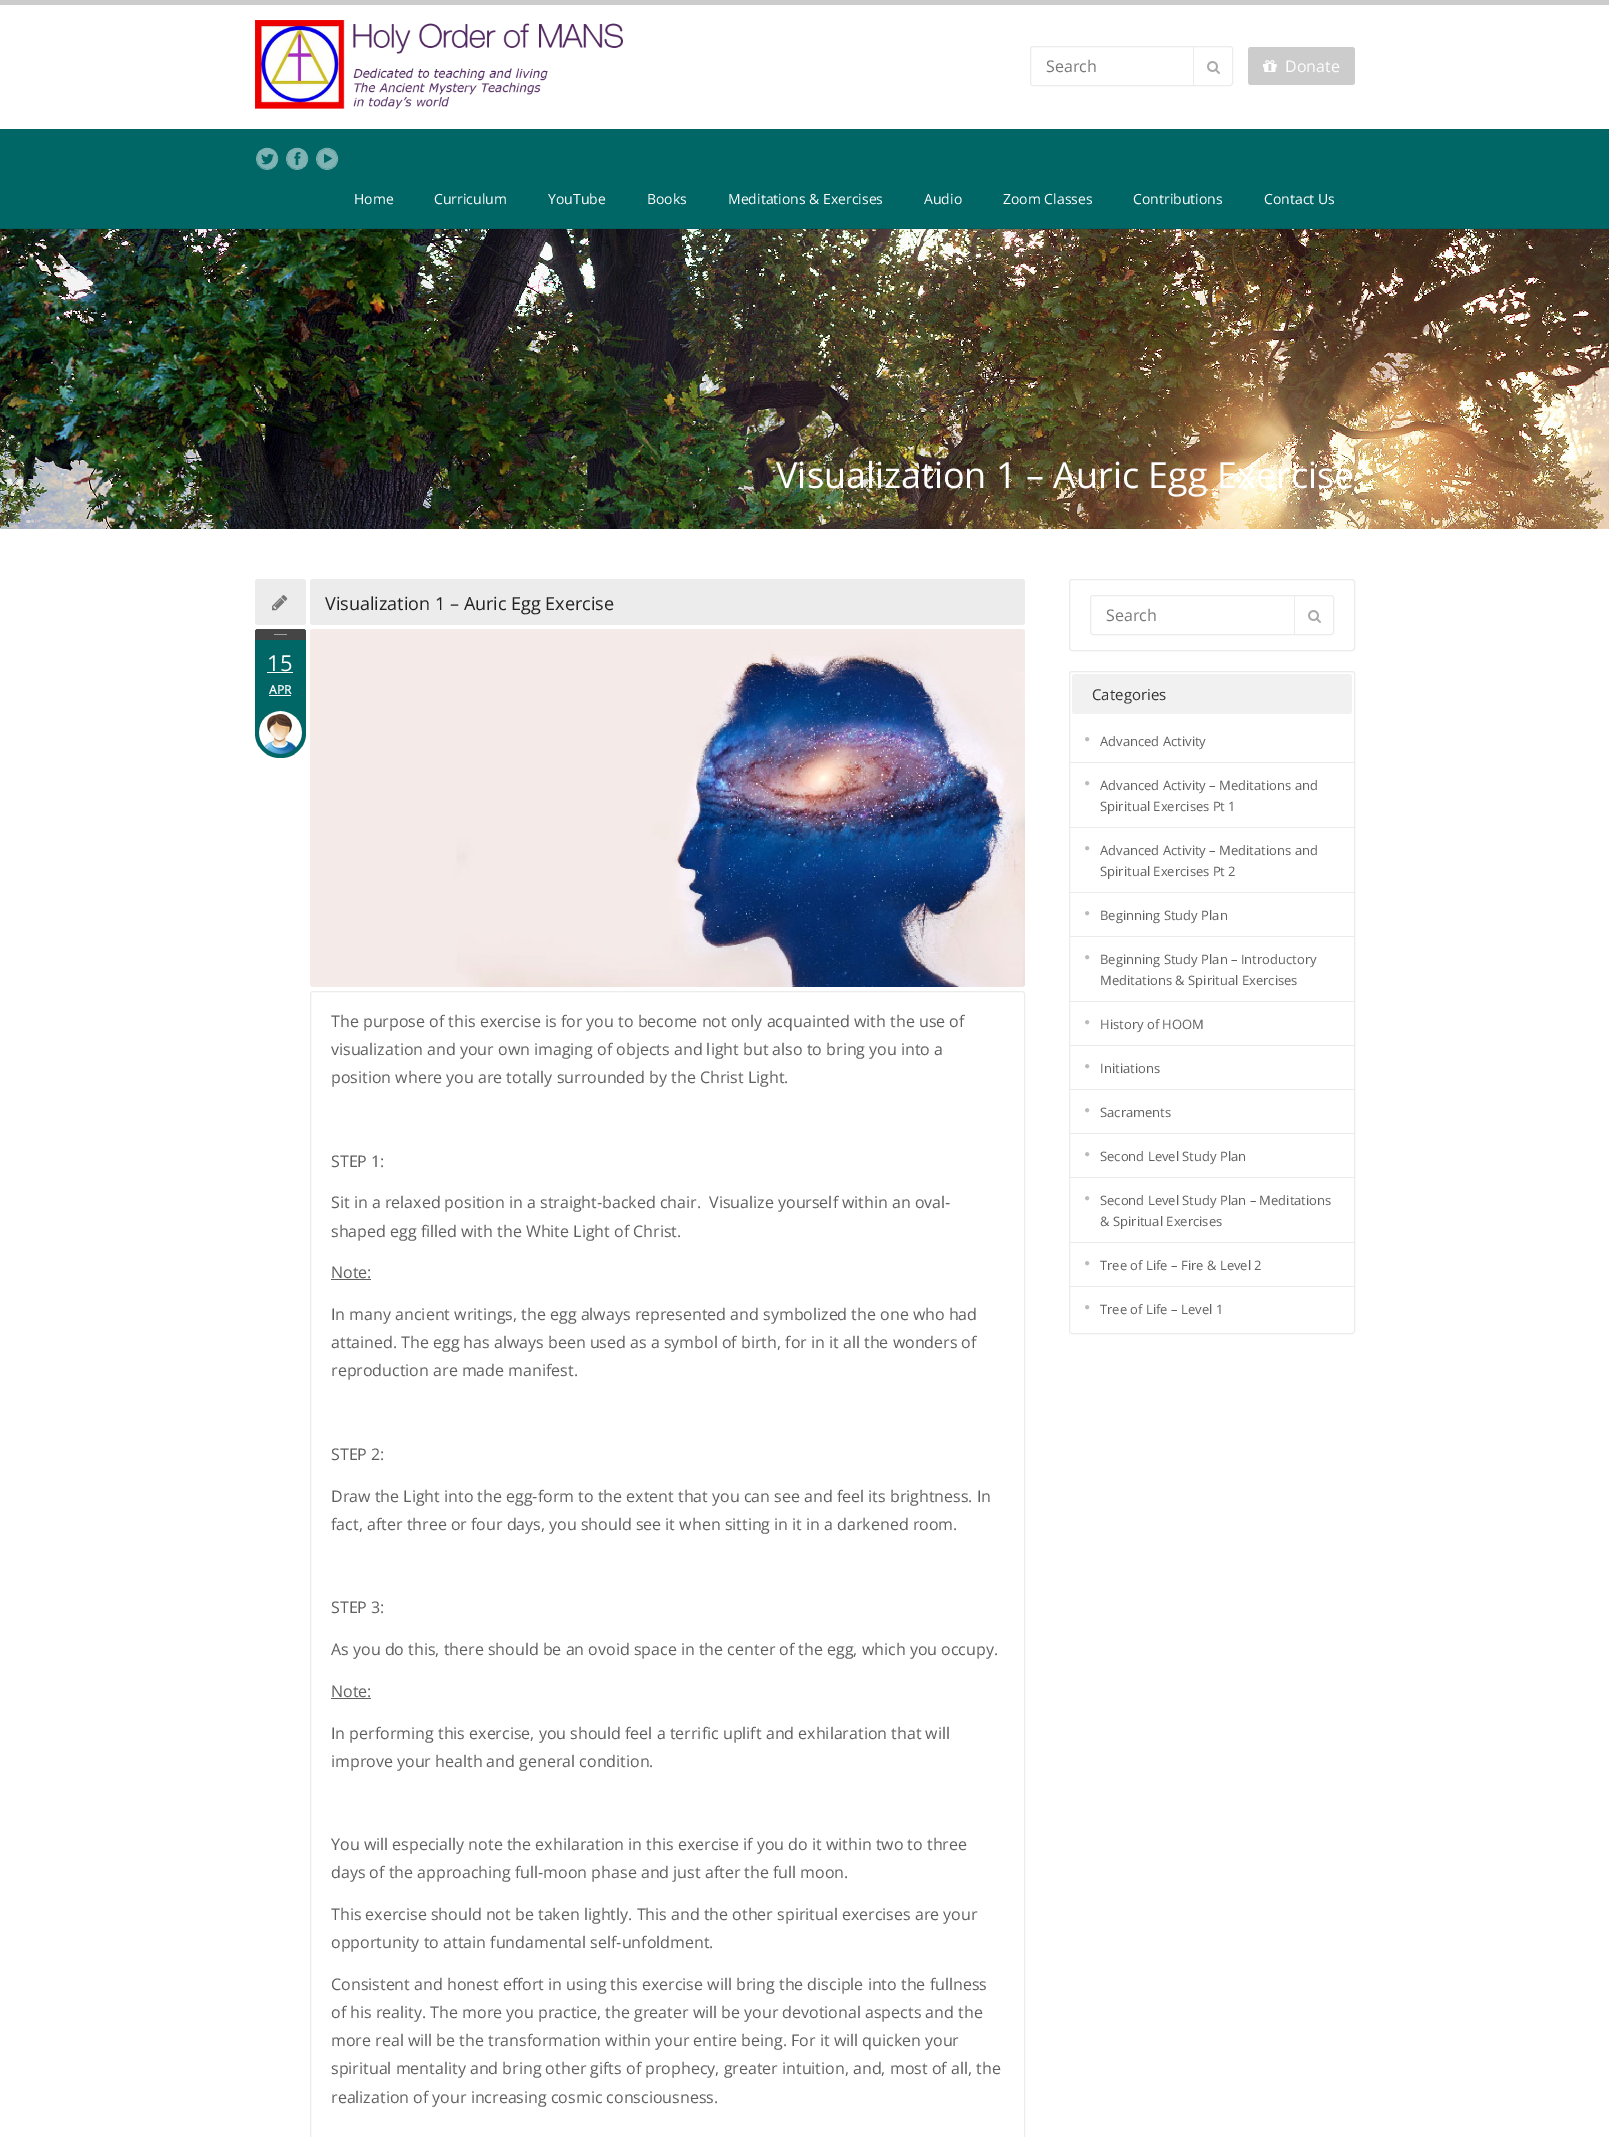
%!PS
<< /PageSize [1609 2137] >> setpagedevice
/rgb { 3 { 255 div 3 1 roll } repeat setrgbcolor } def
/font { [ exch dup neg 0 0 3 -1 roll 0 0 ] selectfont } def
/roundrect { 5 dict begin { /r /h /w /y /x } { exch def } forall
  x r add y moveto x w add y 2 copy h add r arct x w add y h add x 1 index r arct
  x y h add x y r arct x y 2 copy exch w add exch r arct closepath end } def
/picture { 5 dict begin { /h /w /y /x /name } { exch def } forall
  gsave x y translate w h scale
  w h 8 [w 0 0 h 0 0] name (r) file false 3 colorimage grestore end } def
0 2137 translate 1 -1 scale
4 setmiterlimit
255 255 255 rgb
0 0 1609 2137 rectfill
204 204 204 rgb
0 0 1609 5 rectfill
(img/1.rgb) 255 20 368 89 picture
236 236 236 rgb
1030.5 46.5 202 39 2.5 roundrect stroke
1193 47 1 38 rectfill
(img/2.rgb) 1207 61 13 13 picture
204 204 204 rgb
1248 47 107 38 3 roundrect fill
(img/3.rgb) 1263 60 14 12 picture
0 102 102 rgb
0 129 1609 99 rectfill
(img/4.rgb) 256 147 23 23 picture
(img/5.rgb) 286 147 23 23 picture
(img/6.rgb) 316 147 23 23 picture
0 94 94 rgb
0 228 1609 1 rectfill
(img/7.rgb) 0 229 1609 300 picture
236 236 236 rgb
255 579 51 46 3 roundrect fill
(img/8.rgb) 272 595 16 16 picture
0 102 102 rgb
258 629 moveto 303 629 lineto 304.5 629 306 630.5 306 632 curveto 306 733 lineto 306 747 295 758 281 758 curveto 280 758 lineto 266 758 255 747 255 733 curveto 255 632 lineto 255 630.5 256.5 629 258 629 curveto closepath fill
69 69 69 rgb
258 629 moveto 303 629 lineto 304.5 629 306 630.5 306 632 curveto 306 640 lineto 255 640 lineto 255 632 lineto 255 630.5 256.5 629 258 629 curveto closepath fill
[
  [274 634 13 1 162 162 162]
  [267 672 26 1 255 255 255]
  [269 695 22 1 255 255 255]
] { aload pop rgb rectfill } forall
(img/9.rgb) 259 711 43 43 picture
236 236 236 rgb
310 579 715 46 3 roundrect fill
(img/10.rgb) 310 629 715 358 picture
310.5 991.5 714 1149 2.5 roundrect stroke
96 96 96 rgb
331 1279 40 1 rectfill
331 1698 40 1 rectfill
236 236 236 rgb
1069.5 579.5 285 71 2.5 roundrect stroke
1090.5 595.5 243 39 2.5 roundrect stroke
1294 596 1 38 rectfill
(img/2.rgb) 1308 610 13 13 picture
1069.5 671.5 285 662 2.5 roundrect stroke
241 241 241 rgb
1072 674 280 40 3 roundrect fill
236 236 236 rgb
1070 762 284 1 rectfill
(img/11.rgb) 1085 737 5 5 picture
1070 827 284 1 rectfill
(img/11.rgb) 1085 781 5 5 picture
1070 892 284 1 rectfill
(img/11.rgb) 1085 846 5 5 picture
1070 936 284 1 rectfill
(img/11.rgb) 1085 911 5 5 picture
1070 1001 284 1 rectfill
(img/11.rgb) 1085 955 5 5 picture
1070 1045 284 1 rectfill
(img/11.rgb) 1085 1020 5 5 picture
1070 1089 284 1 rectfill
(img/11.rgb) 1085 1064 5 5 picture
1070 1133 284 1 rectfill
(img/11.rgb) 1085 1108 5 5 picture
1070 1177 284 1 rectfill
(img/11.rgb) 1085 1152 5 5 picture
1070 1242 284 1 rectfill
(img/11.rgb) 1085 1196 5 5 picture
1070 1286 284 1 rectfill
(img/11.rgb) 1085 1261 5 5 picture
(img/11.rgb) 1085 1305 5 5 picture
/OpenSans-Regular 16 font
119 119 119 rgb
1046 72 moveto (Search) show
255 255 255 rgb
1285 72 moveto (Donate) show
/OpenSans-Regular 14 font
[
  [(Home) 354 204]
  [(Curriculum) 434 204]
  [(YouTube) 548 204]
  [(Books) 647 204]
  [(Meditations & Exercises) 728 204]
  [(Audio) 924 204]
  [(Zoom Classes) 1003 204]
  [(Contributions) 1133 204]
  [(Contact Us) 1264 204]
] { aload pop moveto show } forall
/OpenSans-Regular 36 font
776 488 moveto (Visualization 1 – Auric Egg Exercise) show
/OpenSans-Regular 22 font
267 671 moveto (15) show
/OpenSans-Bold 12 font
269 694 moveto (APR) show
/OpenSans-Regular 18 font
34 34 34 rgb
325 610 moveto (Visualization 1 – Auric Egg Exercise) show
/OpenSans-Regular 16 font
96 96 96 rgb
[
  [(The purpose of this exercise is for you to become not only acquainted with the use of) 331 1027]
  [(visualization and your own imaging of objects and light but also to bring you into a) 331 1055]
  [(position where you are totally surrounded by the Christ Light.) 331 1083]
  [(STEP 1:) 331 1167]
  [(Sit in a relaxed position in a straight-backed chair.  Visualize yourself within an oval-) 331 1208]
  [(shaped egg filled with the White Light of Christ.) 331 1237]
  [(Note:) 331 1278]
  [(In many ancient writings, the egg always represented and symbolized the one who had) 331 1320]
  [(attained. The egg has always been used as a symbol of birth, for in it all the wonders of) 331 1348]
  [(reproduction are made manifest.) 331 1376]
  [(STEP 2:) 331 1460]
  [(Draw the Light into the egg-form to the extent that you can see and feel its brightness. In) 331 1502]
  [(fact, after three or four days, you should see it when sitting in it in a darkened room.) 331 1530]
  [(STEP 3:) 331 1613]
  [(As you do this, there should be an ovoid space in the center of the egg, which you occupy.) 331 1655]
  [(Note:) 331 1697]
  [(In performing this exercise, you should feel a terrific uplift and exhilaration that will) 331 1739]
  [(improve your health and general condition.) 331 1767]
  [(You will especially note the exhilaration in this exercise if you do it within two to three) 331 1850]
  [(days of the approaching full-moon phase and just after the full moon.) 331 1878]
  [(This exercise should not be taken lightly. This and the other spiritual exercises are your) 331 1920]
  [(opportunity to attain fundamental self-unfoldment.) 331 1948]
  [(Consistent and honest effort in using this exercise will bring the disciple into the fullness) 331 1990]
  [(of his reality. The more you practice, the greater will be your devotional aspects and the) 331 2018]
  [(more real will be the transformation within your entire being. For it will quicken your) 331 2046]
  [(spiritual mentality and bring other gifts of prophecy, greater intuition, and, most of all, the) 331 2074]
  [(realization of your increasing cosmic consciousness.) 331 2103]
] { aload pop moveto show } forall
119 119 119 rgb
1106 621 moveto (Search) show
/OpenSans-Regular 15 font
51 51 51 rgb
1092 700 moveto (Categories) show
/OpenSans-Regular 13 font
96 96 96 rgb
[
  [(Advanced Activity) 1100 746]
  [(Advanced Activity – Meditations and) 1100 790]
  [(Spiritual Exercises Pt 1) 1100 811]
  [(Advanced Activity – Meditations and) 1100 855]
  [(Spiritual Exercises Pt 2) 1100 876]
  [(Beginning Study Plan) 1100 920]
  [(Beginning Study Plan – Introductory) 1100 964]
  [(Meditations & Spiritual Exercises) 1100 985]
  [(History of HOOM) 1100 1029]
  [(Initiations) 1100 1073]
  [(Sacraments) 1100 1117]
  [(Second Level Study Plan) 1100 1161]
  [(Second Level Study Plan – Meditations) 1100 1205]
  [(& Spiritual Exercises) 1100 1226]
  [(Tree of Life – Fire & Level 2) 1100 1270]
  [(Tree of Life – Level 1) 1100 1314]
] { aload pop moveto show } forall
showpage
